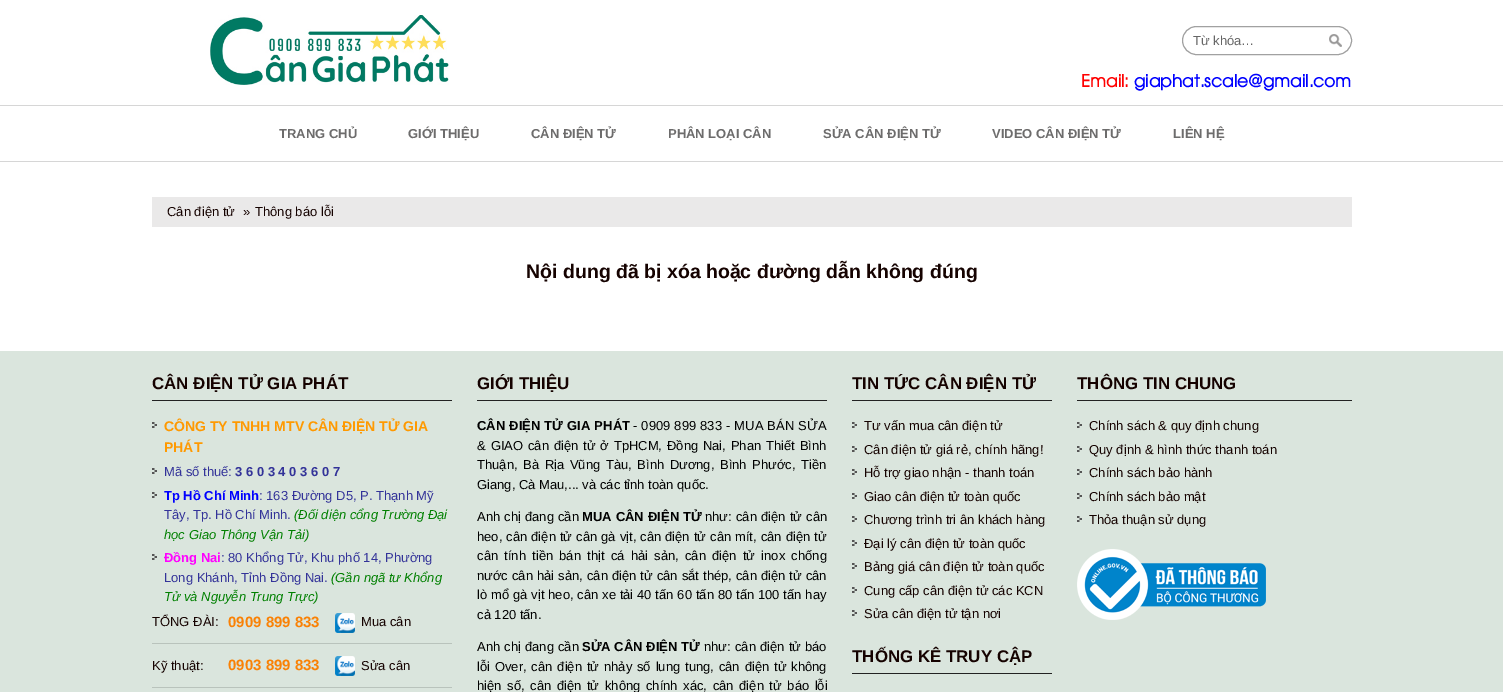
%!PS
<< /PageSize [1503 692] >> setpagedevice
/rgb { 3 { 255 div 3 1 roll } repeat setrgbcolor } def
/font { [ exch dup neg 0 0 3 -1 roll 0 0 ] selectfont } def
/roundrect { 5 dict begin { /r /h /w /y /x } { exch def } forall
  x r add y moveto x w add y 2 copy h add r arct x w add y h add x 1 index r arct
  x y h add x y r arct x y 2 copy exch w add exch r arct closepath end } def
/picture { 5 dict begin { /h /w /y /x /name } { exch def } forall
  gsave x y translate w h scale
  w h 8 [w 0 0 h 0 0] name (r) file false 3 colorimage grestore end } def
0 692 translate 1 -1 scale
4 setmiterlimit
255 255 255 rgb
0 0 1503 692 rectfill
214 214 214 rgb
0 105 1503 1 rectfill
0 161 1503 1 rectfill
161 161 161 rgb
1182.5 26.5 169 28 14 roundrect stroke
(img/1.rgb) 1329 34 13 13 picture
(img/2.rgb) 210 15 239 70 picture
[
  [152 197 1200 30 234 233 233]
  [0 351 1503 341 218 229 221]
  [152 400 300 1 34 34 34]
] { aload pop rgb rectfill } forall
(img/3.rgb) 152 422 5 6 picture
(img/3.rgb) 152 468 5 6 picture
(img/3.rgb) 152 492 5 6 picture
(img/3.rgb) 152 554 5 6 picture
185 195 188 rgb
152 643 300 1 rectfill
(img/4.rgb) 335 613 20 20 picture
152 687 300 1 rectfill
(img/4.rgb) 335 656 20 20 picture
34 34 34 rgb
477 400 350 1 rectfill
852 400 200 1 rectfill
(img/5.rgb) 852 422 5 6 picture
(img/5.rgb) 852 446 5 6 picture
(img/5.rgb) 852 469 5 6 picture
(img/5.rgb) 852 493 5 6 picture
(img/5.rgb) 852 516 5 6 picture
(img/5.rgb) 852 540 5 6 picture
(img/5.rgb) 852 563 5 6 picture
(img/5.rgb) 852 587 5 6 picture
(img/5.rgb) 852 610 5 6 picture
852 673 200 1 rectfill
1077 400 275 1 rectfill
(img/3.rgb) 1077 422 5 6 picture
(img/3.rgb) 1077 446 5 6 picture
(img/3.rgb) 1077 469 5 6 picture
(img/3.rgb) 1077 493 5 6 picture
(img/3.rgb) 1077 516 5 6 picture
(img/6.rgb) 1077 549 189 71 picture
/LiberationSans-Regular 13 font
102 102 102 rgb
1193 45 moveto (Từ khóa…) show
/LiberationSans-Bold 13 font
109 108 108 rgb
[
  [(TRANG CHỦ) 279 138]
  [(GIỚI THIỆU) 408 138]
  [(CÂN ĐIỆN TỬ) 531 138]
  [(PHÂN LOẠI CÂN) 668 138]
  [(SỬA CÂN ĐIỆN TỬ) 823 138]
  [(VIDEO CÂN ĐIỆN TỬ) 992 138]
  [(LIÊN HỆ) 1173 138]
] { aload pop moveto show } forall
/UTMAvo-Bold 17 font
255 0 0 rgb
1081 87 moveto (Email:) show
0 0 255 rgb
1134 87 moveto (giaphat.scale@gmail.com) show
/LiberationSans-Regular 13 font
21 2 0 rgb
[
  [(Cân điện tử) 167 216]
  [(») 243 216]
  [(Thông báo lỗi) 255 216]
] { aload pop moveto show } forall
/LiberationSans-Bold 19.5 font
526 278 moveto (Nội dung đã bị xóa hoặc đường dẫn không đúng) show
/LiberationSans-Bold 16.9 font
152 389 moveto (CÂN ĐIỆN TỬ GIA PHÁT) show
/LiberationSans-Bold 14 font
255 153 0 rgb
164 431 moveto (CÔNG TY TNHH MTV CÂN ĐIỆN TỬ GIA) show
164 452 moveto (PHÁT) show
/LiberationSans-Regular 13 font
51 51 153 rgb
164 476 moveto (Mã số thuế:) show
/LiberationSans-Bold 13 font
235 476 moveto (3 6 0 3 4 0 3 6 0 7) show
0 0 255 rgb
164 500 moveto (Tp Hồ Chí Minh) show
/LiberationSans-Regular 13 font
51 51 153 rgb
259 500 moveto (: 163 Đường D5, P. Thạnh Mỹ) show
164 519 moveto (Tây, Tp. Hồ Chí Minh.) show
/LiberationSans-Italic 13 font
0 128 0 rgb
294 519 moveto (\(Đối diện cổng Trường Đại) show
164 539 moveto (học Giao Thông Vận Tải\)) show
/LiberationSans-Bold 13 font
255 0 255 rgb
164 562 moveto (Đồng Nai) show
/LiberationSans-Regular 13 font
51 51 153 rgb
221 562 moveto (: 80 Khổng Tử, Khu phố 14, Phường) show
164 582 moveto (Long Khánh, Tỉnh Đồng Nai.) show
/LiberationSans-Italic 13 font
0 128 0 rgb
331 582 moveto (\(Gần ngã tư Khổng) show
164 601 moveto (Tử và Nguyễn Trung Trực\)) show
/LiberationSans-Regular 13 font
21 2 0 rgb
152 626 moveto (TỔNG ĐÀI:) show
/LiberationSans-Bold 15 font
250 129 4 rgb
228 627 moveto (0909 899 833) show
/LiberationSans-Regular 13 font
21 2 0 rgb
361 626 moveto (Mua cân) show
152 670 moveto (Kỹ thuật:) show
/LiberationSans-Bold 15 font
250 129 4 rgb
228 670 moveto (0903 899 833) show
/LiberationSans-Regular 13 font
21 2 0 rgb
361 670 moveto (Sửa cân) show
/LiberationSans-Bold 16.9 font
477 389 moveto (GIỚI THIỆU) show
/LiberationSans-Bold 13 font
0 0 0 rgb
477 430 moveto 0.5 0 32 (CÂN ĐIỆN TỬ GIA PHÁT) widthshow
/LiberationSans-Regular 13 font
633 430 moveto 0.5 0 32 (- 0909 899 833 - MUA BÁN SỬA) widthshow
477 450 moveto 1.25 0 32 (& GIAO cân điện tử ở TpHCM, Đồng Nai, Phan Thiết Bình) widthshow
477 469 moveto 2 0 32 (Thuận, Bà Rịa Vũng Tàu, Bình Dương, Bình Phước, Tiền) widthshow
477 489 moveto (Giang, Cà Mau,... và các tỉnh toàn quốc.) show
477 521 moveto 0.5 0 32 (Anh chị đang cần) widthshow
/LiberationSans-Bold 13 font
582 521 moveto 0.5 0 32 (MUA CÂN ĐIỆN TỬ) widthshow
/LiberationSans-Regular 13 font
705 521 moveto 0.5 0 32 (như: cân điện tử cân) widthshow
477 541 moveto 0.4 0 32 (heo, cân điện tử cân gà vịt, cân điện tử cân mít, cân điện tử) widthshow
477 560 moveto 2.6 0 32 (cân tính tiền bán thịt cá hải sản, cân điện tử inox chống) widthshow
477 580 moveto 0.4 0 32 (nước cân hải sản, cân điện tử cân sắt thép, cân điện tử cân) widthshow
477 599 moveto 0.25 0 32 (lò mổ gà vịt heo, cân xe tải 40 tấn 60 tấn 80 tấn 100 tấn hay) widthshow
477 619 moveto (cả 120 tấn.) show
477 651 moveto 0.5 0 32 (Anh chị đang cần) widthshow
/LiberationSans-Bold 13 font
582 651 moveto (SỬA CÂN ĐIỆN TỬ) show
/LiberationSans-Regular 13 font
704 651 moveto 0.5 0 32 (như: cân điện tử báo) widthshow
477 671 moveto 1.25 0 32 (lỗi Over, cân điện tử nhảy số lung tung, cân điện tử không) widthshow
477 690 moveto 2 0 32 (hiện số, cân điện tử không chính xác, cân điện tử báo lỗi) widthshow
/LiberationSans-Bold 16.9 font
21 2 0 rgb
852 389 moveto (TIN TỨC CÂN ĐIỆN TỬ) show
/LiberationSans-Regular 13 font
[
  [(Tư vấn mua cân điện tử) 864 430]
  [(Cân điện tử giá rẻ, chính hãng!) 864 454]
  [(Hỗ trợ giao nhận - thanh toán) 864 477]
  [(Giao cân điện tử toàn quốc) 864 501]
  [(Chương trình tri ân khách hàng) 864 524]
  [(Đại lý cân điện tử toàn quốc) 864 548]
  [(Bảng giá cân điện tử toàn quốc) 864 571]
  [(Cung cấp cân điện tử các KCN) 864 595]
  [(Sửa cân điện tử tận nơi) 864 618]
] { aload pop moveto show } forall
/LiberationSans-Bold 16.9 font
852 662 moveto (THỐNG KÊ TRUY CẬP) show
1077 389 moveto (THÔNG TIN CHUNG) show
/LiberationSans-Regular 13 font
[
  [(Chính sách & quy định chung) 1089 430]
  [(Quy định & hình thức thanh toán) 1089 454]
  [(Chính sách bảo hành) 1089 477]
  [(Chính sách bảo mật) 1089 501]
  [(Thỏa thuận sử dụng) 1089 524]
] { aload pop moveto show } forall
showpage
